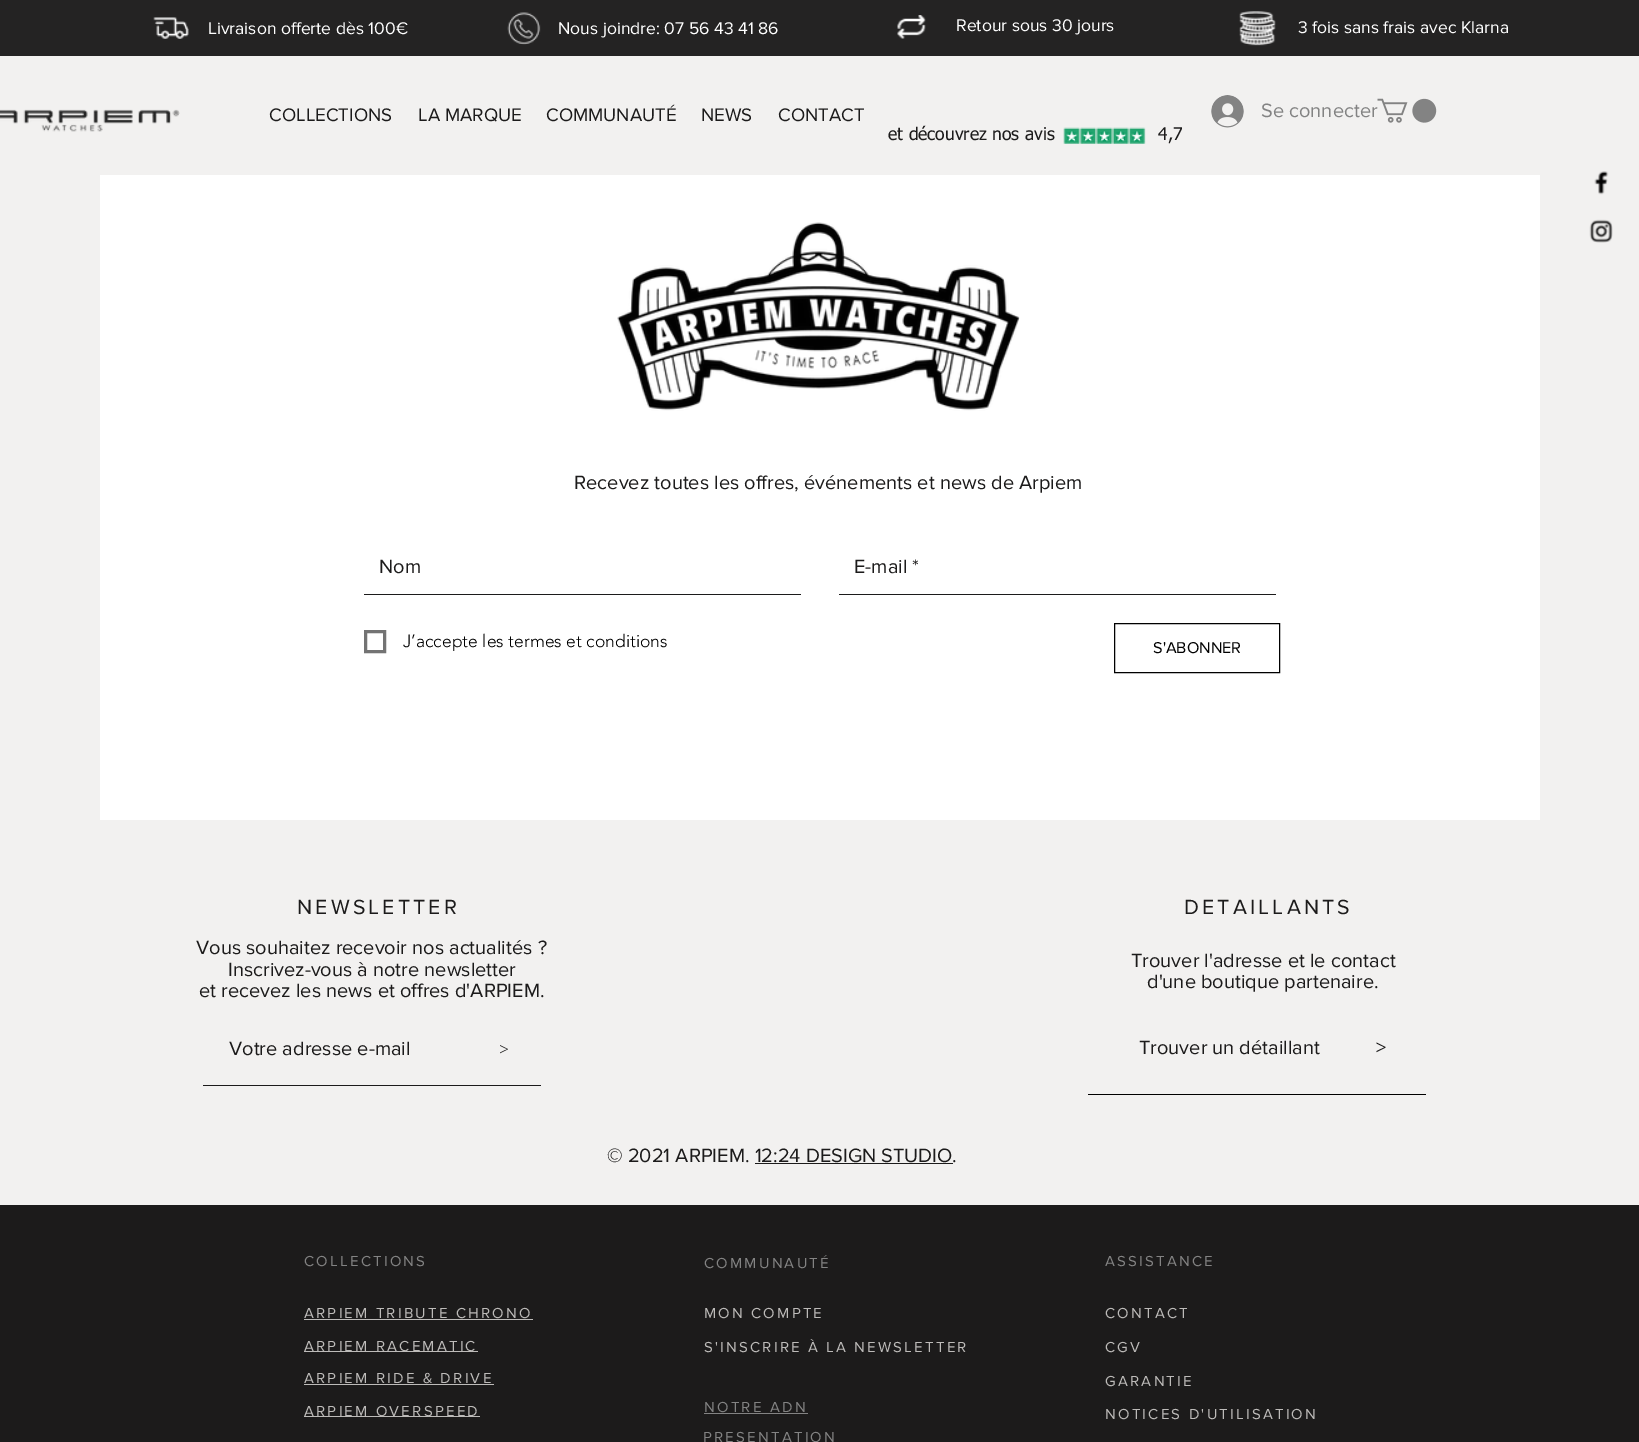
%!PS
<< /PageSize [1639 1442] >> setpagedevice
/rgb { 3 { 255 div 3 1 roll } repeat setrgbcolor } def
/font { [ exch dup neg 0 0 3 -1 roll 0 0 ] selectfont } def
/picture { 5 dict begin { /h /w /y /x /name } { exch def } forall
  gsave x y translate w h scale
  w h 8 [w 0 0 h 0 0] name (r) file false 3 colorimage grestore end } def
0 1442 translate 1 -1 scale
4 setmiterlimit
242 241 240 rgb
0 0 1639 1442 rectfill
36 35 35 rgb
0 0 1639 56 rectfill
(img/1.rgb) 153 17 36 22 picture
(img/2.rgb) 507 12 34 33 picture
(img/3.rgb) 897 15 29 24 picture
(img/4.rgb) 1239 11 37 35 picture
(img/5.rgb) 0 109 180 23 picture
(img/6.rgb) 1211 95 33 33 picture
(img/9.rgb) 1594 171 15 24 picture
(img/10.rgb) 1589 219 24 24 picture
255 255 255 rgb
100 175 1440 645 rectfill
(img/11.rgb) 617 222 403 189 picture
28 27 27 rgb
364 594 437 1 rectfill
839 594 437 1 rectfill
115 115 115 rgb
3 setlinewidth
365.5 631.5 19 20 rectstroke
0 0 0 rgb
1 setlinewidth
1114.5 623.5 165 49 rectstroke
[
  [203 1085 338 1 28 27 27]
  [1088 1094 338 1 0 0 0]
  [755 1163 198 1 28 27 27]
  [0 1205 1639 237 28 27 27]
  [304 1319 229 1 189 187 185]
  [304 1351 174 1 189 187 185]
  [304 1384 190 1 189 187 185]
  [304 1416 176 1 189 187 185]
  [704 1413 104 1 131 131 131]
] { aload pop rgb rectfill } forall
/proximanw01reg-Regular 17.5 font
255 255 255 rgb
[
  [(Livraison offerte dès 100€) 208 34]
  [(Nous joindre: 07 56 43 41 86) 558 34]
  [(Retour sous 30 jours) 956 31]
  [(3 fois sans frais avec Klarna) 1298 33]
] { aload pop moveto show } forall
/proximanw01reg-Regular 18.75 font
28 27 27 rgb
[
  [(COLLECTIONS) 269 121]
  [(LA MARQUE) 418 121]
  [(COMMUNAUTÉ) 546 121]
  [(NEWS) 701 121]
  [(CONTACT) 778 121]
] { aload pop moveto show } forall
/proximanw01reg-Regular 20 font
131 131 131 rgb
1261 117 moveto (Se connecter) show
/tahoma-Regular 17.5 font
28 27 27 rgb
888 140 moveto (et découvrez nos avis                   4,7) show
(img/7.rgb) 1063 127 83 17 picture
(img/8.rgb) 1377 98 60 25 picture
/proximanw01reg-Regular 20 font
[
  [(Recevez toutes les offres, événements et news de Arpiem) 574 489]
  [(Nom) 379 573]
  [(E-mail *) 854 573]
] { aload pop moveto show } forall
/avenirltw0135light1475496-Light 17.5 font
0 0 0 rgb
403 647 moveto (J’accepte les termes et conditions) show
/proximanw01reg-Regular 16.25 font
1153 653 moveto (S'ABONNER) show
/proximanw01reg-Regular 21.25 font
28 27 27 rgb
297 914 moveto 3.25 0 (NEWSLETTER) ashow
1184 914 moveto 3.25 0 (DETAILLANTS) ashow
/proximanw01reg-Regular 20 font
[
  [(Vous souhaitez recevoir nos actualités ?) 196 954]
  [(Inscrivez-vous à notre newsletter) 228 976]
  [(et recevez les news et offres d'ARPIEM.) 199 997]
  [(Trouver l'adresse et le contact) 1131 967]
  [(d'une boutique partenaire.) 1147 988]
  [(Trouver un détaillant           >) 1139 1054]
  [(Votre adresse e-mail) 229 1055]
] { aload pop moveto show } forall
/LiberationSerif-Regular 17.5 font
499 1055 moveto (>) show
/proximanw01reg-Regular 20 font
607 1162 moveto (© 2021 ARPIEM. 12:24 DESIGN STUDIO.) show
/proximanw01reg-Regular 15 font
131 131 131 rgb
304 1266 moveto 2.25 0 (COLLECTIONS) ashow
704 1268 moveto 2.25 0 (COMMUNAUTÉ) ashow
1105 1266 moveto 2.25 0 (ASSISTANCE) ashow
189 187 185 rgb
304 1318 moveto 2.25 0 (ARPIEM TRIBUTE CHRONO) ashow
304 1351 moveto 2.25 0 (ARPIEM RACEMATIC) ashow
304 1383 moveto 2.25 0 (ARPIEM RIDE & DRIVE) ashow
304 1416 moveto 2.25 0 (ARPIEM OVERSPEED) ashow
704 1318 moveto 2.25 0 (MON COMPTE) ashow
704 1352 moveto 2.25 0 (S'INSCRIRE À LA NEWSLETTER) ashow
1105 1318 moveto 2.25 0 (CONTACT) ashow
1105 1352 moveto 2.25 0 (CGV) ashow
1105 1386 moveto 2.25 0 (GARANTIE) ashow
1105 1419 moveto 2.25 0 (NOTICES D'UTILISATION) ashow
131 131 131 rgb
704 1412 moveto 2.25 0 (NOTRE ADN) ashow
703 1442 moveto 2.25 0 (PRESENTATION) ashow
showpage
